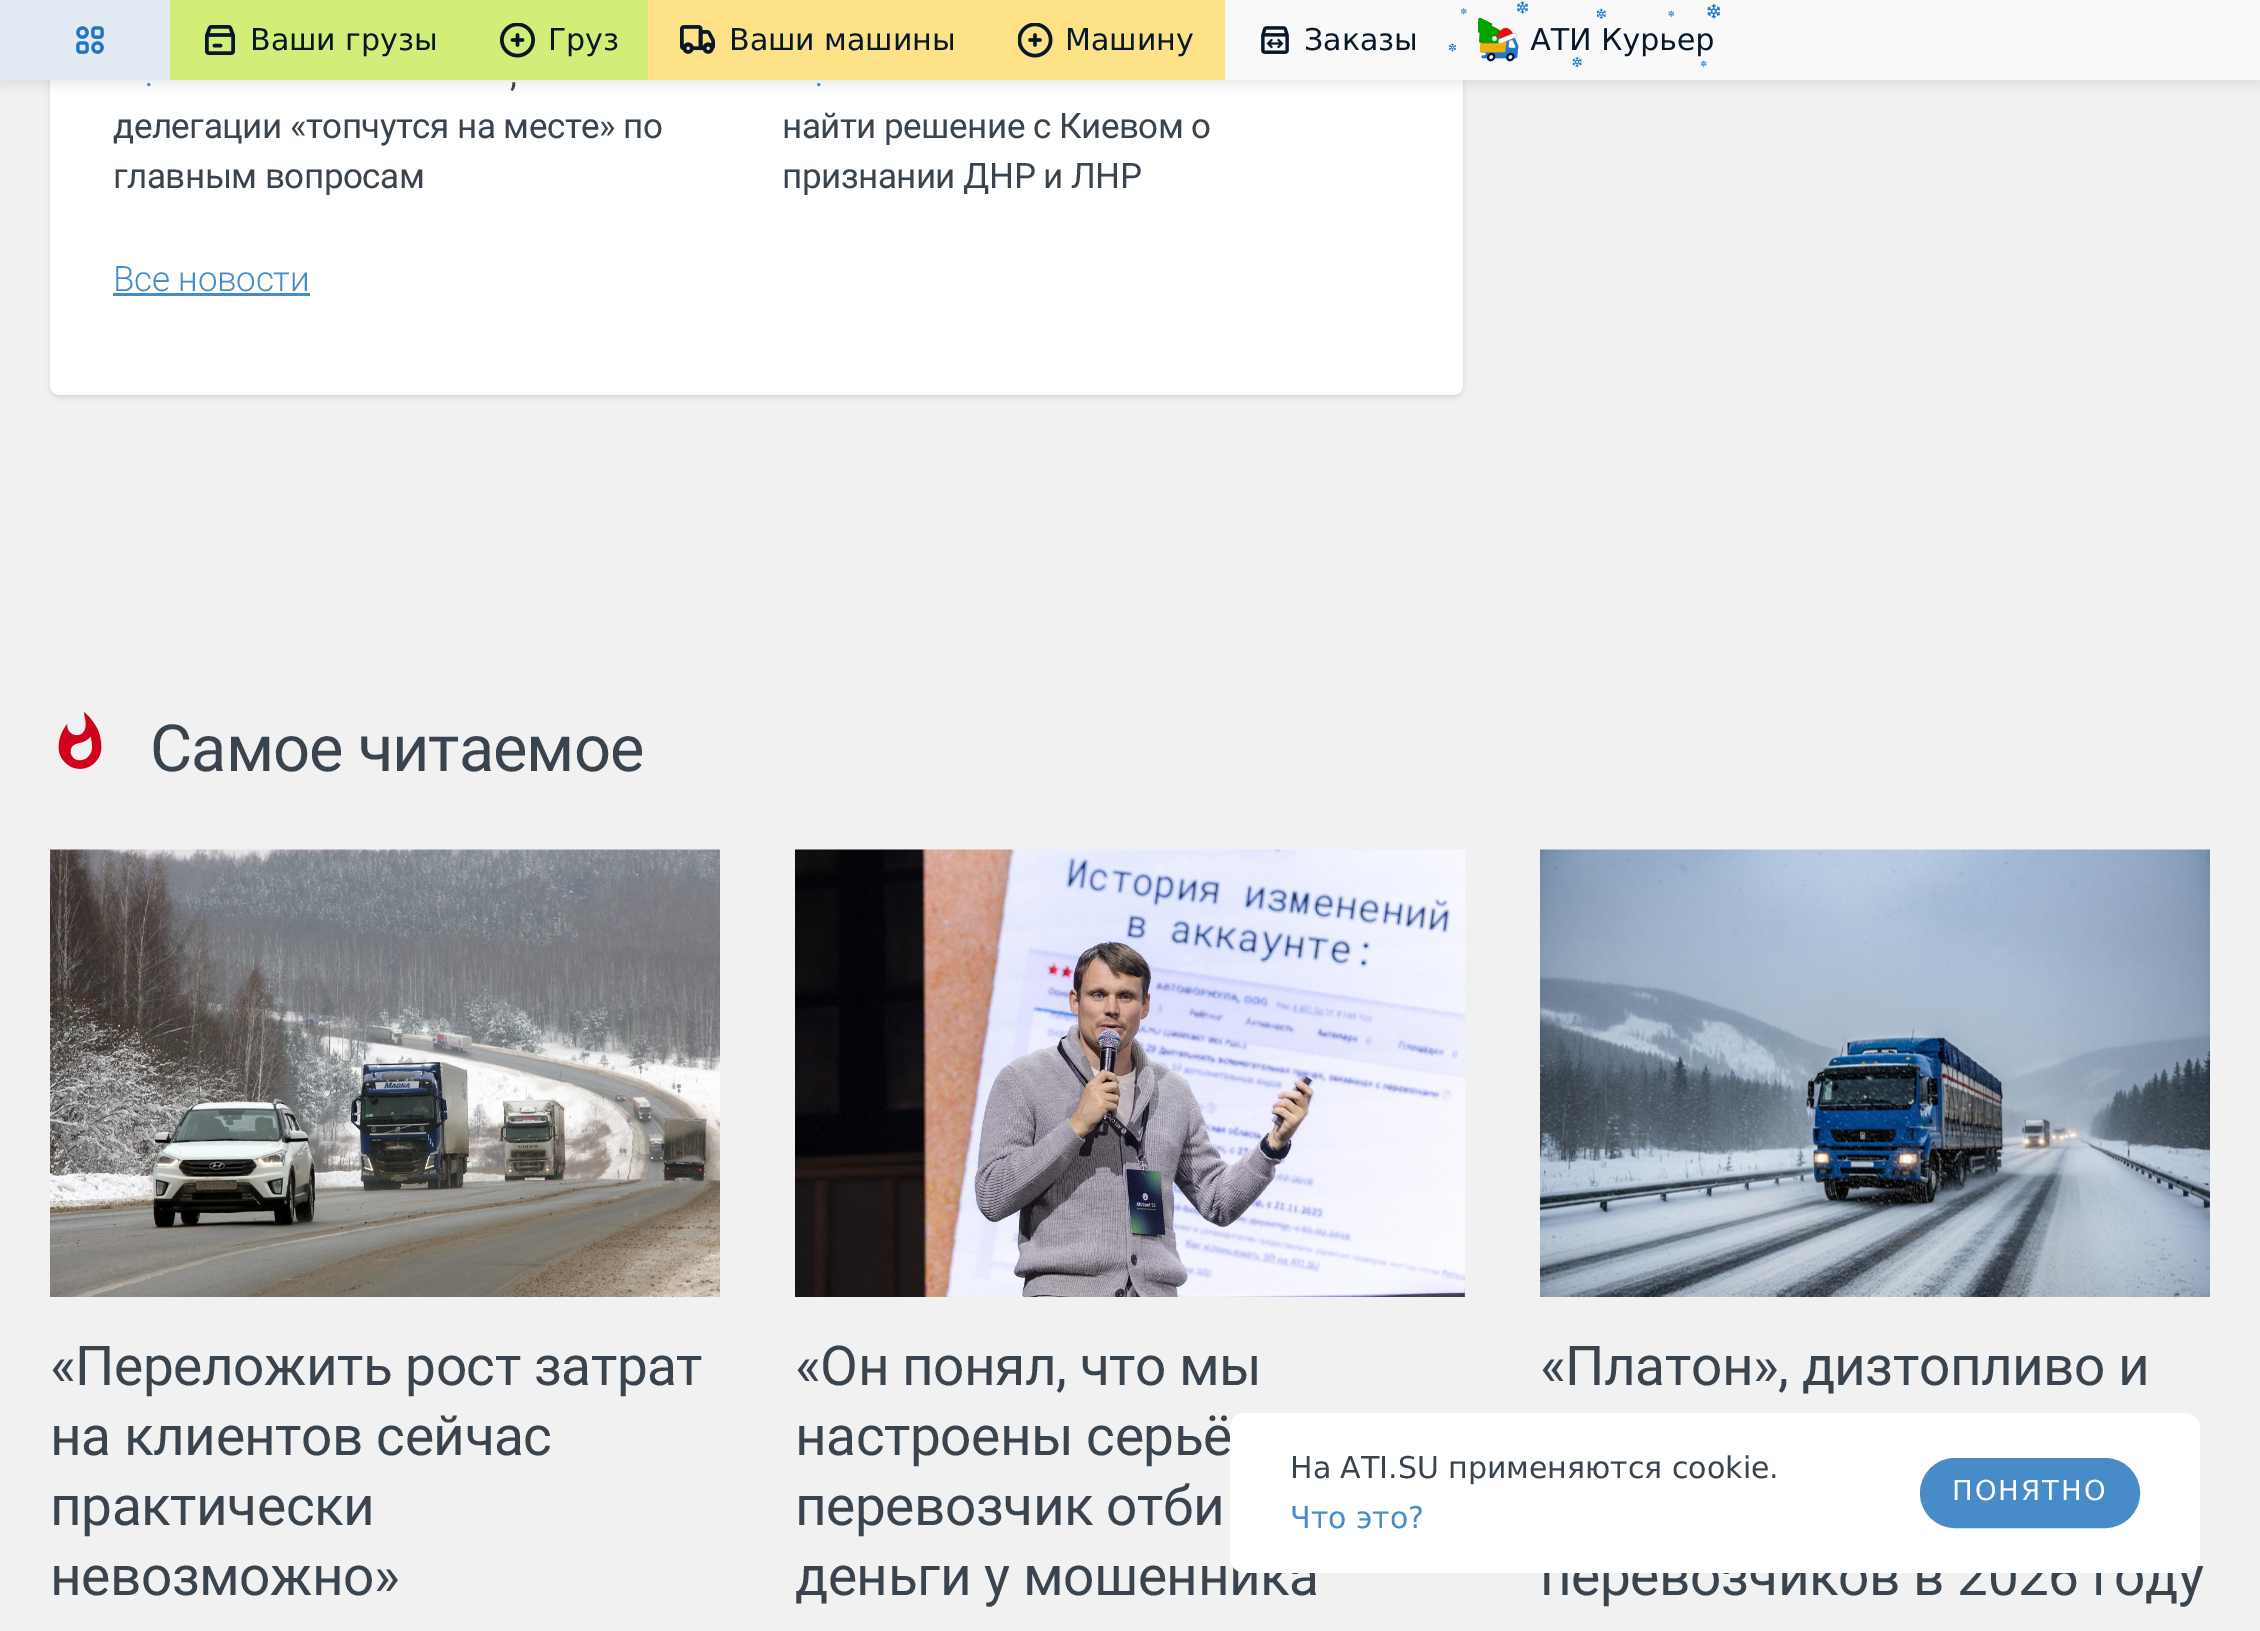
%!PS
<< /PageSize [2260 1631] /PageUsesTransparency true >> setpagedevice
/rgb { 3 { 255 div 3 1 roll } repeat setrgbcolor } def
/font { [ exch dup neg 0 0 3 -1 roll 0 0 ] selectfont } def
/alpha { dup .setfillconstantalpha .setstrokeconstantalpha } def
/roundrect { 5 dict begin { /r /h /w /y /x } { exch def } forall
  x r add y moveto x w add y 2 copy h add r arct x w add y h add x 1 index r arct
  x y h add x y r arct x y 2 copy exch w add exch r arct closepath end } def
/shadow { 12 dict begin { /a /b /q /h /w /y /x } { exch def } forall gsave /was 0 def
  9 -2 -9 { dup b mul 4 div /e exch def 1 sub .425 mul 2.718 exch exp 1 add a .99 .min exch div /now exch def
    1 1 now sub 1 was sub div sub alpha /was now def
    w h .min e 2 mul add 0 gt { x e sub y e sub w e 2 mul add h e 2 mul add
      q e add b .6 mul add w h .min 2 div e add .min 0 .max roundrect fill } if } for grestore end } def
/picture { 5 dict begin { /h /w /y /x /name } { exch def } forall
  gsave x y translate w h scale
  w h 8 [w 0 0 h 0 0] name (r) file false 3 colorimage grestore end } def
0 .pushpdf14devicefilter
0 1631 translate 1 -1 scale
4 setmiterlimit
241 241 241 rgb
0 0 2260 1631 rectfill
0 0 0 rgb
50 -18 1413 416 10 2.5 0.1 shadow
255 255 255 rgb
50 -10 moveto 1463 -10 lineto 1463 385 lineto 1463 390.5 1458.5 395 1453 395 curveto 60 395 lineto 54.5 395 50 390.5 50 385 curveto closepath fill
7 24 41 rgb
0 5 2260 80 0 5 0.08 shadow
249 249 250 rgb
1225 0 1035 80 rectfill
233 241 250 rgb
0 0 170 80 rectfill
(img/1.rgb) 76 26 28 28 picture
0.03 alpha
7 24 41 rgb
0 0 170 80 rectfill
1 alpha
211 238 120 rgb
170 0 478 80 rectfill
(img/2.rgb) 205 25 30 30 picture
(img/3.rgb) 500 23 35 35 picture
253 225 134 rgb
648 0 577 80 rectfill
(img/4.rgb) 680 25 35 29 picture
(img/5.rgb) 1018 23 35 35 picture
(img/6.rgb) 1261 26 28 28 picture
(img/8.rgb) 1478 18 41 44 picture
71 140 200 rgb
113 293 197 3 rectfill
(img/9.rgb) 58 712 44 57 picture
(img/10.rgb) 50 849 670 448 picture
(img/11.rgb) 795 849 670 448 picture
(img/12.rgb) 1540 849 670 448 picture
/DejaVuSans-Regular 30 font
7 24 41 rgb
[
  [(Ваши грузы) 250 50]
  [(Груз) 548 50]
  [(Ваши машины) 729 50]
  [(Машину) 1065 50]
  [(Заказы) 1304 50]
  [(АТИ Курьер) 1530 50]
] { aload pop moveto show } forall
(img/7.rgb) 1448 1 273 67 picture
/Roboto-Regular 30 font
71 140 200 rgb
145 86 moveto -0.5 0 (.) ashow
/Roboto-Regular 35 font
57 68 79 rgb
510 86 moveto -0.5 0 (,) ashow
113 138 moveto -0.5 0 (делегации «топчутся на месте» по) ashow
113 188 moveto -0.5 0 (главным вопросам) ashow
/Roboto-Regular 30 font
71 140 200 rgb
815 86 moveto -0.5 0 (.) ashow
/Roboto-Regular 35 font
57 68 79 rgb
782 138 moveto -0.5 0 (найти решение с Киевом о) ashow
782 188 moveto -0.5 0 (признании ДНР и ЛНР) ashow
/Roboto-Light 35 font
71 140 200 rgb
113 291 moveto -0.25 0 (Все новости) ashow
/Roboto-Regular 65 font
57 68 79 rgb
150 771 moveto -1 0 (Самое читаемое) ashow
/Roboto-Regular 55 font
50 1385 moveto -0.5 0 («Переложить рост затрат) ashow
50 1455 moveto -0.5 0 (на клиентов сейчас) ashow
50 1525 moveto -0.5 0 (практически) ashow
50 1595 moveto -0.5 0 (невозможно») ashow
795 1385 moveto -0.5 0 («Он понял, что мы) ashow
795 1455 moveto -0.5 0 (настроены серьё) ashow
795 1525 moveto -0.5 0 (перевозчик отби) ashow
795 1595 moveto -0.5 0 (деньги у мошенника) ashow
1540 1385 moveto -0.5 0 («Платон», дизтопливо и) ashow
1540 1595 moveto -0.5 0 (перевозчиков в 2026 году) ashow
255 255 255 rgb
1230 1413 970 160 15 roundrect fill
71 140 200 rgb
1921.5 1459.5 217 67 33.5 roundrect gsave fill grestore
3 setlinewidth
stroke
/DejaVuSans-Regular 27.5 font
255 255 255 rgb
1952 1500 moveto 2 0 (ПОНЯТНО) ashow
/DejaVuSans-Regular 30 font
71 140 200 rgb
1290 1528 moveto (Что это?) show
57 68 79 rgb
1290 1478 moveto (На ATI.SU применяются cookie.) show
.poppdf14devicefilter showpage
